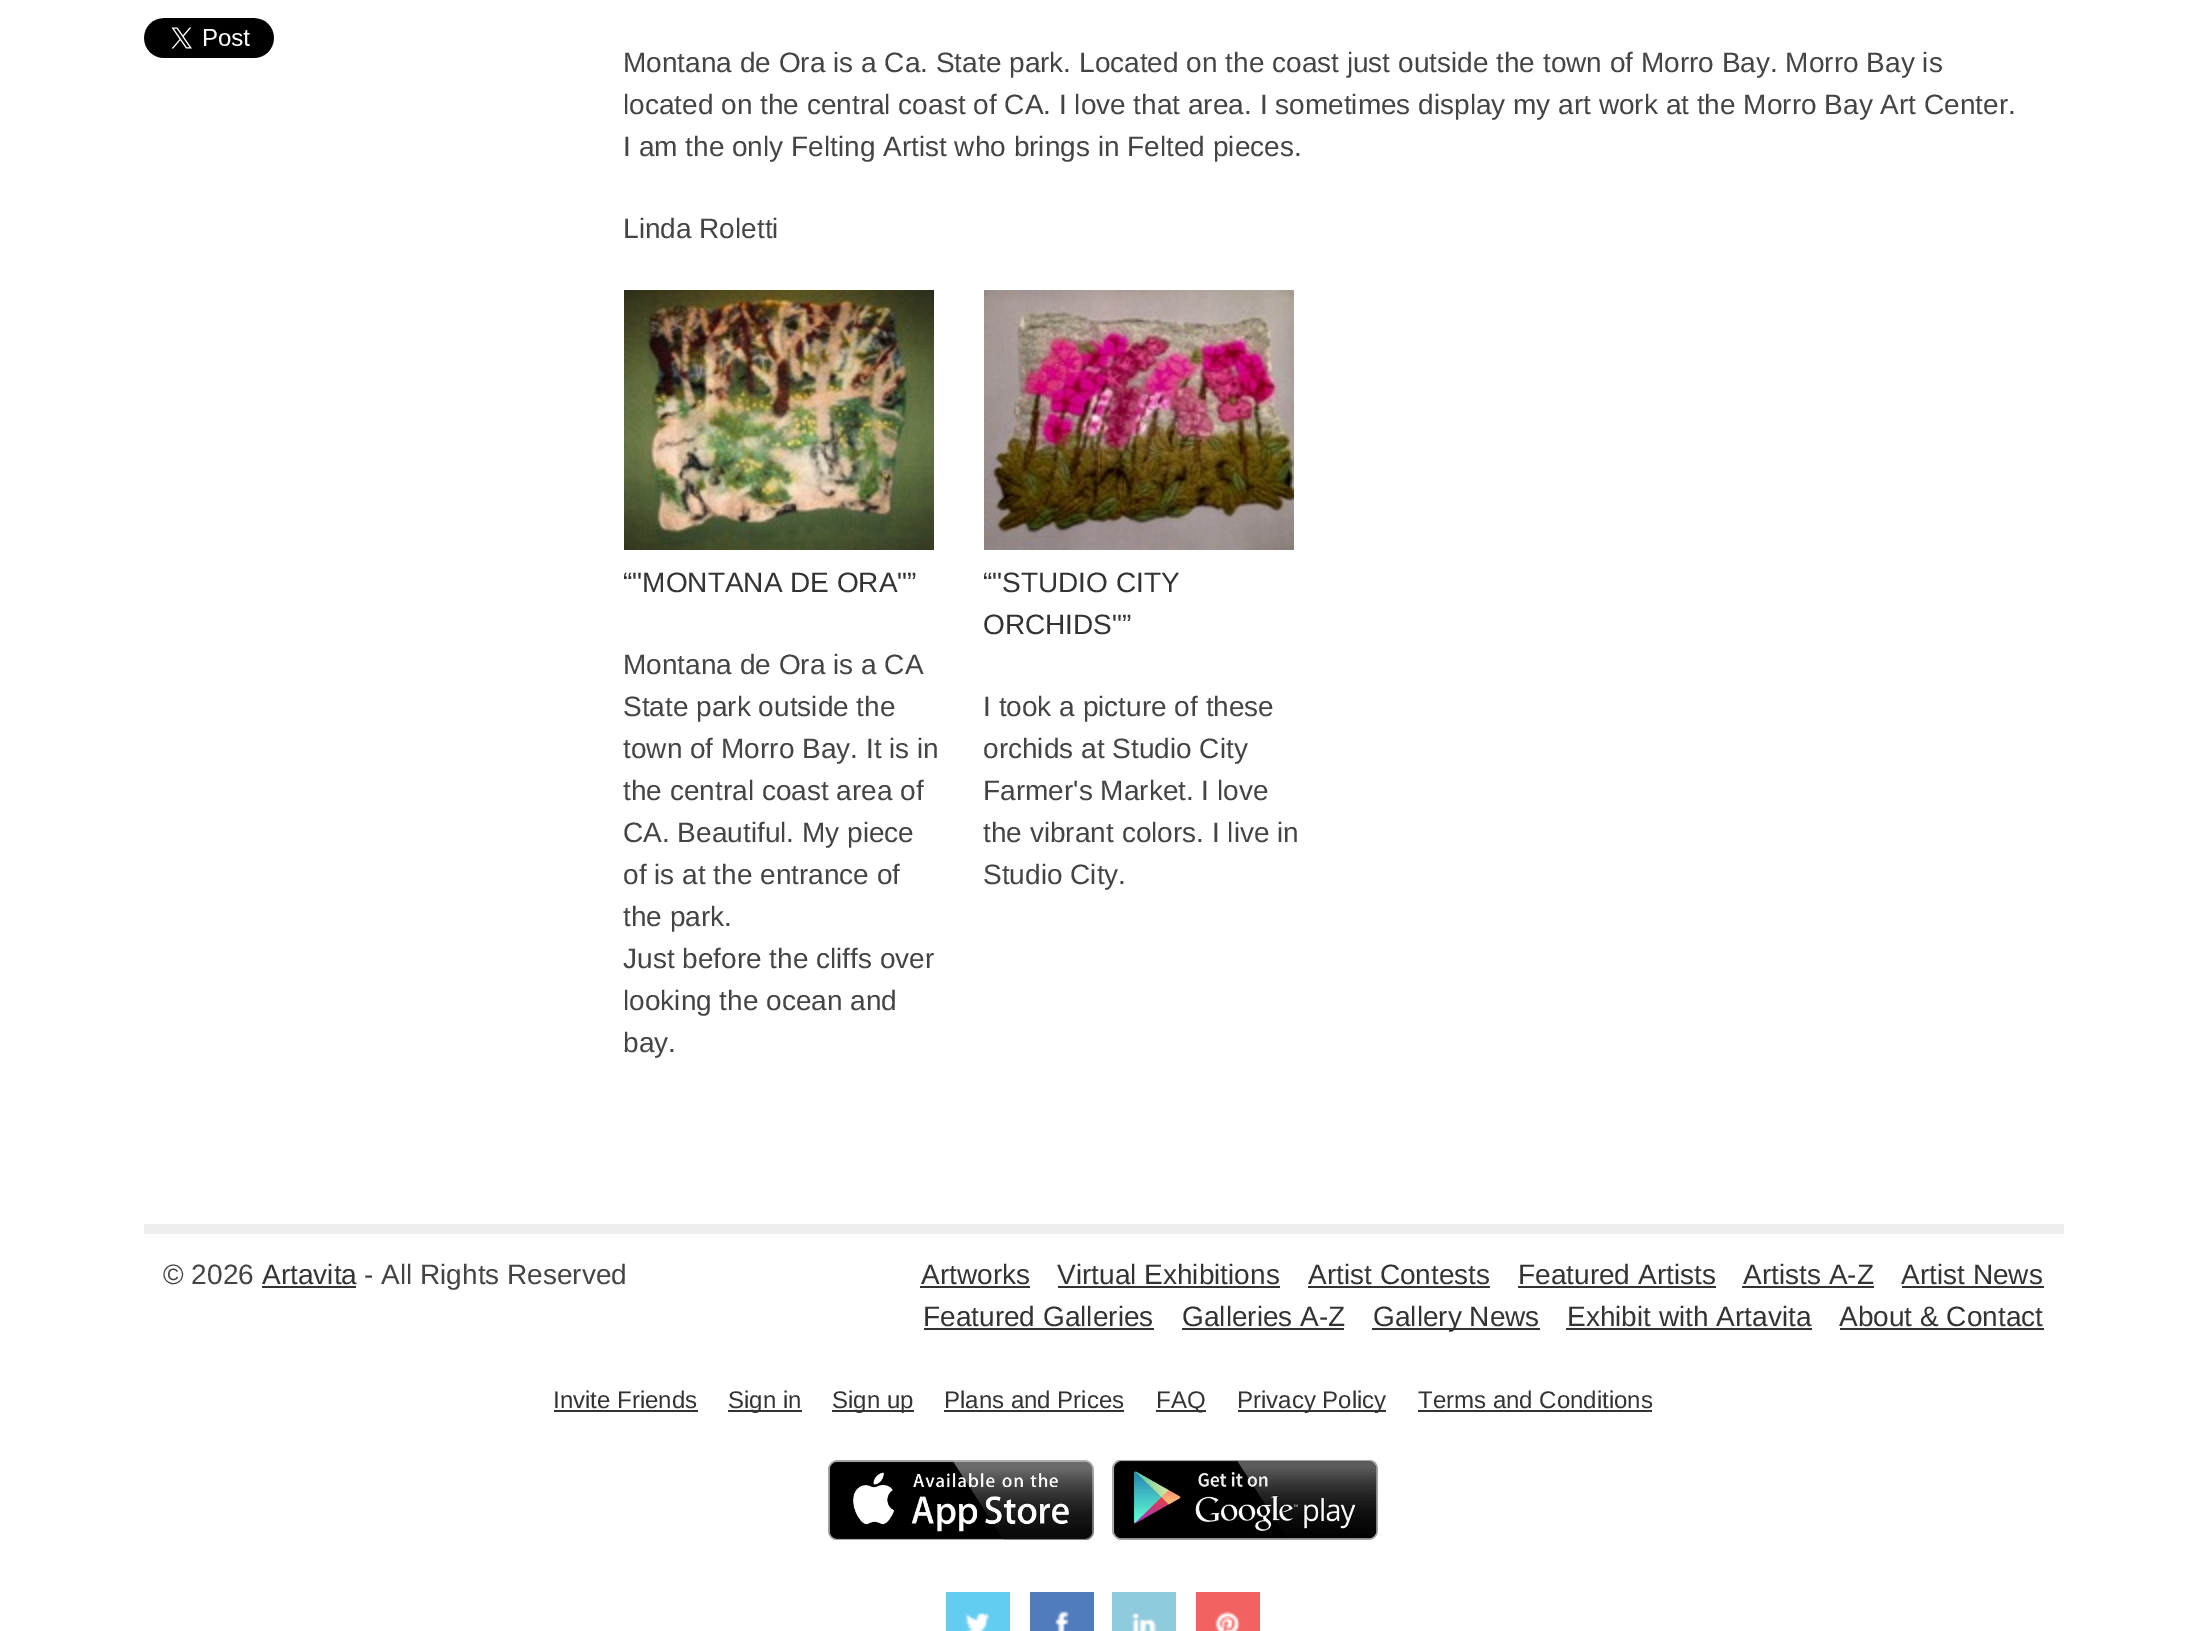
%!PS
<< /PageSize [2205 1631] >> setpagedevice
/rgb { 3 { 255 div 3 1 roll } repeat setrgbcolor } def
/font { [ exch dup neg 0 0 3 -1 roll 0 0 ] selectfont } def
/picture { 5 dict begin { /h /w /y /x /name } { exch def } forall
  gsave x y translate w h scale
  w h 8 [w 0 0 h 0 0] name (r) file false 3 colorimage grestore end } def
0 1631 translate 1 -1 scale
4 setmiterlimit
255 255 255 rgb
0 0 2205 1631 rectfill
(img/1.rgb) 144 18 130 40 picture
(img/2.rgb) 624 290 310 260 picture
(img/3.rgb) 984 290 310 260 picture
[
  [144 1224 1920 10 238 238 238]
  [262 1286 94 2 51 51 51]
  [920 1286 110 2 51 51 51]
  [1058 1286 222 2 51 51 51]
  [1308 1286 182 2 51 51 51]
  [1518 1286 198 2 51 51 51]
  [1742 1286 132 2 51 51 51]
  [1902 1286 142 2 51 51 51]
  [924 1328 230 2 51 51 51]
  [1182 1328 162 2 51 51 51]
  [1372 1328 168 2 51 51 51]
  [1566 1328 246 2 51 51 51]
  [1840 1328 204 2 51 51 51]
  [554 1410 144 2 51 51 51]
  [728 1410 74 2 51 51 51]
  [832 1410 82 2 51 51 51]
  [944 1410 180 2 51 51 51]
  [1156 1410 50 2 51 51 51]
  [1238 1410 148 2 51 51 51]
  [1418 1410 234 2 51 51 51]
] { aload pop rgb rectfill } forall
(img/4.rgb) 828 1460 266 80 picture
(img/5.rgb) 1112 1460 266 80 picture
(img/6.rgb) 946 1592 64 39 picture
(img/7.rgb) 1030 1592 64 39 picture
(img/8.rgb) 1112 1592 64 39 picture
(img/9.rgb) 1196 1592 64 39 picture
/LiberationSans-Regular 28 font
68 68 68 rgb
[
  [(Montana de Ora is a Ca. State park. Located on the coast just outside the town of Morro Bay. Morro Bay is) 623 72]
  [(located on the central coast of CA. I love that area. I sometimes display my art work at the Morro Bay Art Center.) 623 114]
  [(I am the only Felting Artist who brings in Felted pieces.) 623 156]
  [(Linda Roletti) 623 238]
] { aload pop moveto show } forall
51 51 51 rgb
623 592 moveto (“"MONTANA DE ORA"”) show
68 68 68 rgb
[
  [(Montana de Ora is a CA) 623 674]
  [(State park outside the) 623 716]
  [(town of Morro Bay. It is in) 623 758]
  [(the central coast area of) 623 800]
  [(CA. Beautiful. My piece) 623 842]
  [(of is at the entrance of) 623 884]
  [(the park.) 623 926]
  [(Just before the cliffs over) 623 968]
  [(looking the ocean and) 623 1010]
  [(bay.) 623 1052]
] { aload pop moveto show } forall
51 51 51 rgb
983 592 moveto (“"STUDIO CITY) show
983 634 moveto (ORCHIDS"”) show
68 68 68 rgb
[
  [(I took a picture of these) 983 716]
  [(orchids at Studio City) 983 758]
  [(Farmer's Market. I love) 983 800]
  [(the vibrant colors. I live in) 983 842]
  [(Studio City.) 983 884]
  [(© 2026) 163 1284]
] { aload pop moveto show } forall
51 51 51 rgb
262 1284 moveto (Artavita) show
68 68 68 rgb
364 1284 moveto (- All Rights Reserved) show
51 51 51 rgb
[
  [(Artworks) 921 1284]
  [(Virtual Exhibitions) 1057 1284]
  [(Artist Contests) 1308 1284]
  [(Featured Artists) 1518 1284]
  [(Artists A-Z) 1743 1284]
  [(Artist News) 1901 1284]
  [(Featured Galleries) 923 1326]
  [(Galleries A-Z) 1182 1326]
  [(Gallery News) 1373 1326]
  [(Exhibit with Artavita) 1567 1326]
  [(About & Contact) 1839 1326]
] { aload pop moveto show } forall
/LiberationSans-Regular 24 font
[
  [(Invite Friends) 553 1408]
  [(Sign in) 728 1408]
  [(Sign up) 832 1408]
  [(Plans and Prices) 944 1408]
  [(FAQ) 1156 1408]
  [(Privacy Policy) 1237 1408]
  [(Terms and Conditions) 1418 1408]
] { aload pop moveto show } forall
showpage
